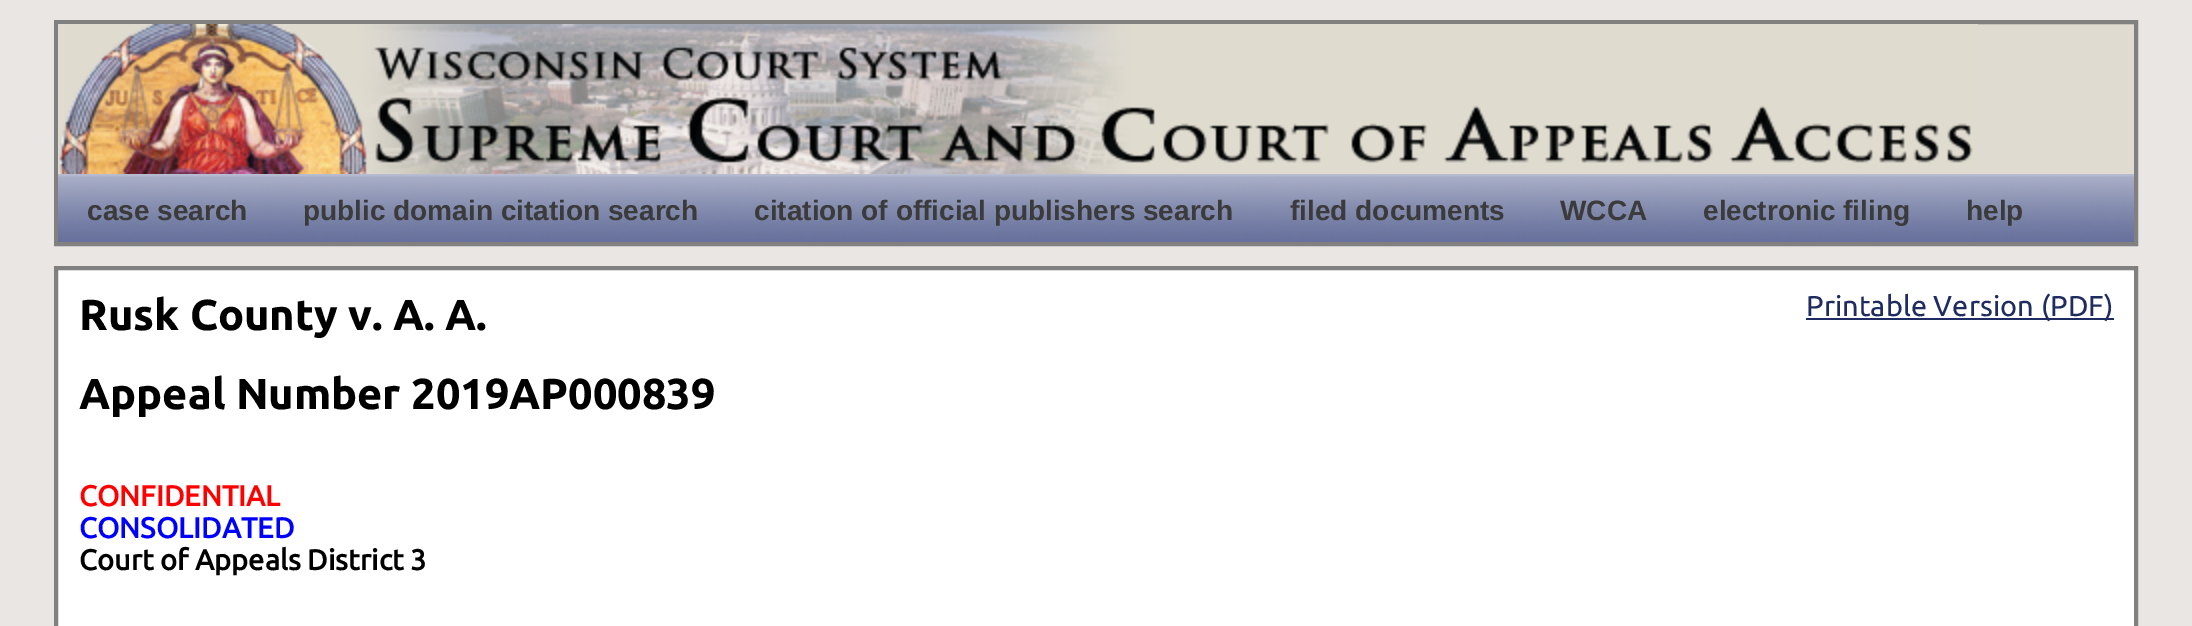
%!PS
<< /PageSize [2192 626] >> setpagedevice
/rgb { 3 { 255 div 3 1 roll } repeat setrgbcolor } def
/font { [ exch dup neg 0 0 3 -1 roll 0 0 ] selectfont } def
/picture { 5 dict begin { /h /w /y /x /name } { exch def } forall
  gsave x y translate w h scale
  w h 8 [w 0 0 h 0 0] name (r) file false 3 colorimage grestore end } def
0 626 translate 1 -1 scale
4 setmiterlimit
233 230 228 rgb
0 0 2192 626 rectfill
223 219 208 rgb
1978 24 156 150 rectfill
128 128 128 rgb
4 setlinewidth
56 22 2080 222 rectstroke
(img/1.rgb) 58 24 1920 150 picture
(img/2.rgb) 58 174 2076 68 picture
255 255 255 rgb
56 268 moveto 2136 268 lineto 2136 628 lineto 56 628 lineto closepath gsave fill grestore
128 128 128 rgb
stroke
31 44 98 rgb
1806 318 308 2 rectfill
/LiberationSans-Bold 28 font
59 59 59 rgb
[
  [(case search) 87 220]
  [(public domain citation search) 303 220]
  [(citation of official publishers search) 754 220]
  [(filed documents) 1290 220]
  [(WCCA) 1560 220]
  [(electronic filing) 1703 220]
  [(help) 1966 220]
] { aload pop moveto show } forall
/Ubuntu-Bold 43.25 font
0 0 0 rgb
79 330 moveto (Rusk County v. A. A.) show
/Ubuntu-Regular 28.75 font
31 44 98 rgb
1806 316 moveto (Printable Version \(PDF\)) show
/Ubuntu-Bold 43.25 font
0 0 0 rgb
79 409 moveto (Appeal Number 2019AP000839) show
/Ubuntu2-Bold 28.75 font
255 0 0 rgb
79 506 moveto (CONFIDENTIAL) show
0 0 255 rgb
79 538 moveto (CONSOLIDATED) show
0 0 0 rgb
79 570 moveto (Court of Appeals District 3) show
showpage
